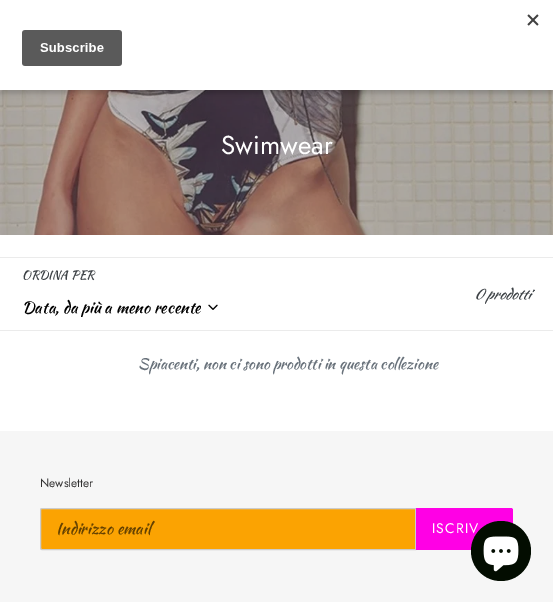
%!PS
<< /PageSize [553 602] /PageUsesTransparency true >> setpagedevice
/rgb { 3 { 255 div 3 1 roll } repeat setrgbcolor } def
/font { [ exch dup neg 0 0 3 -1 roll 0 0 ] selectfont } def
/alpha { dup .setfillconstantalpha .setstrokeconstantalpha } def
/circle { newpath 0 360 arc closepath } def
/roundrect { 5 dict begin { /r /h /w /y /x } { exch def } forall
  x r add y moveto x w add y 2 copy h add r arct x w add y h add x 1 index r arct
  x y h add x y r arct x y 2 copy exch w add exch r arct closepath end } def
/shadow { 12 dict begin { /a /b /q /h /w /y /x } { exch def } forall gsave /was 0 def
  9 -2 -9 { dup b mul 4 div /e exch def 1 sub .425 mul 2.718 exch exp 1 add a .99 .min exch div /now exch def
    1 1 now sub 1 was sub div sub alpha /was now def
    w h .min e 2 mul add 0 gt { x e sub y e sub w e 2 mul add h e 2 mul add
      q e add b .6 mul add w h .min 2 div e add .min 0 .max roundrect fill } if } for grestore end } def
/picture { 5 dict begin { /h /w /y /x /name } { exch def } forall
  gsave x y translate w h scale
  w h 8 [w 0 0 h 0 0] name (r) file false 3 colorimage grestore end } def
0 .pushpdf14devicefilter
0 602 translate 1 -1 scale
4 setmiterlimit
255 255 255 rgb
0 0 553 602 rectfill
(img/2.rgb) 0 90 553 145 picture
0 0 0 rgb
0 3 553 90 0 3 0.2 shadow
255 255 255 rgb
0 0 553 90 rectfill
(img/1.rgb) 22 14 517 52 picture
235 235 235 rgb
0 257 553 1 rectfill
0 330 553 1 rectfill
(img/3.rgb) 208 304 10 6 picture
246 246 246 rgb
0 431 553 171 rectfill
251 163 2 rgb
42 508.5 moveto 415.5 508.5 lineto 415.5 549.5 lineto 42 549.5 lineto 41 549.5 40.5 549 40.5 548 curveto 40.5 510 lineto 40.5 509 41 508.5 42 508.5 curveto closepath gsave fill grestore
204 204 204 rgb
stroke
255 0 229 rgb
416 508 moveto 511 508 lineto 512 508 513 509 513 510 curveto 513 548 lineto 513 549 512 550 511 550 curveto 416 550 lineto closepath fill
/Jost-Regular 26 font
255 255 255 rgb
221 154 moveto (Swimwear) show
/KaushanScript-Regular 12 font
61 66 70 rgb
22 279 moveto (ORDINA PER) show
gsave
22 298 179 19 rectclip
/KaushanScript-Regular 16 font
0 0 0 rgb
22 313 moveto (Data, da più a meno recente) show
grestore
/KaushanScript-Italic 14 font
474 299 moveto (0 prodotti) show
/KaushanScript-Regular 15 font
105 114 123 rgb
138 369 moveto (Spiacenti, non ci sono prodotti in questa collezione) show
/Jost-Regular 12 font
51 50 50 rgb
40 487 moveto (Newsletter) show
/KaushanScript-Regular 16 font
100 65 1 rgb
56 534 moveto (Indirizzo email) show
/Jost-Regular 14 font
255 255 255 rgb
432 533 moveto 1 0 (ISCRIV) ashow
3 13 1 rgb
501 551 30 circle fill
(img/4.rgb) 483 536 36 36 picture
.poppdf14devicefilter showpage
